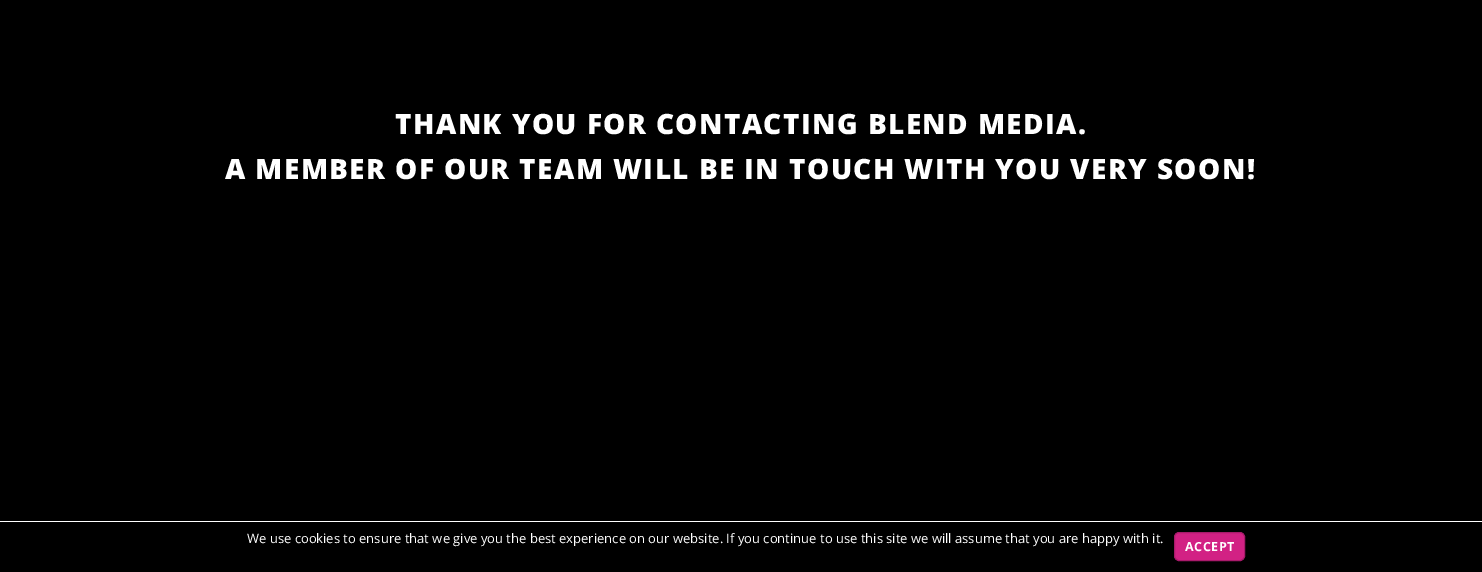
%!PS
<< /PageSize [1482 572] >> setpagedevice
/rgb { 3 { 255 div 3 1 roll } repeat setrgbcolor } def
/font { [ exch dup neg 0 0 3 -1 roll 0 0 ] selectfont } def
/roundrect { 5 dict begin { /r /h /w /y /x } { exch def } forall
  x r add y moveto x w add y 2 copy h add r arct x w add y h add x 1 index r arct
  x y h add x y r arct x y 2 copy exch w add exch r arct closepath end } def
0 572 translate 1 -1 scale
4 setmiterlimit
0 0 0 rgb
0 0 1482 572 rectfill
255 255 255 rgb
0 521 1482 1 rectfill
210 33 132 rgb
1174.5 532.5 70 28 4.5 roundrect gsave fill grestore
168 26 106 rgb
stroke
/OpenSans-ExtraBold 28 font
255 255 255 rgb
395 134 moveto 1.4 0 (THANK YOU FOR CONTACTING BLEND MEDIA.) ashow
225 179 moveto 1.4 0 (A MEMBER OF OUR TEAM WILL BE IN TOUCH WITH YOU VERY SOON!) ashow
/OpenSans-Regular 13 font
247 543 moveto (We use cookies to ensure that we give you the best experience on our website. If you continue to use this site we will assume that you are happy with it.) show
/OpenSans-Bold 12.5 font
1185 551 moveto 0.5 0 (ACCEPT) ashow
showpage
